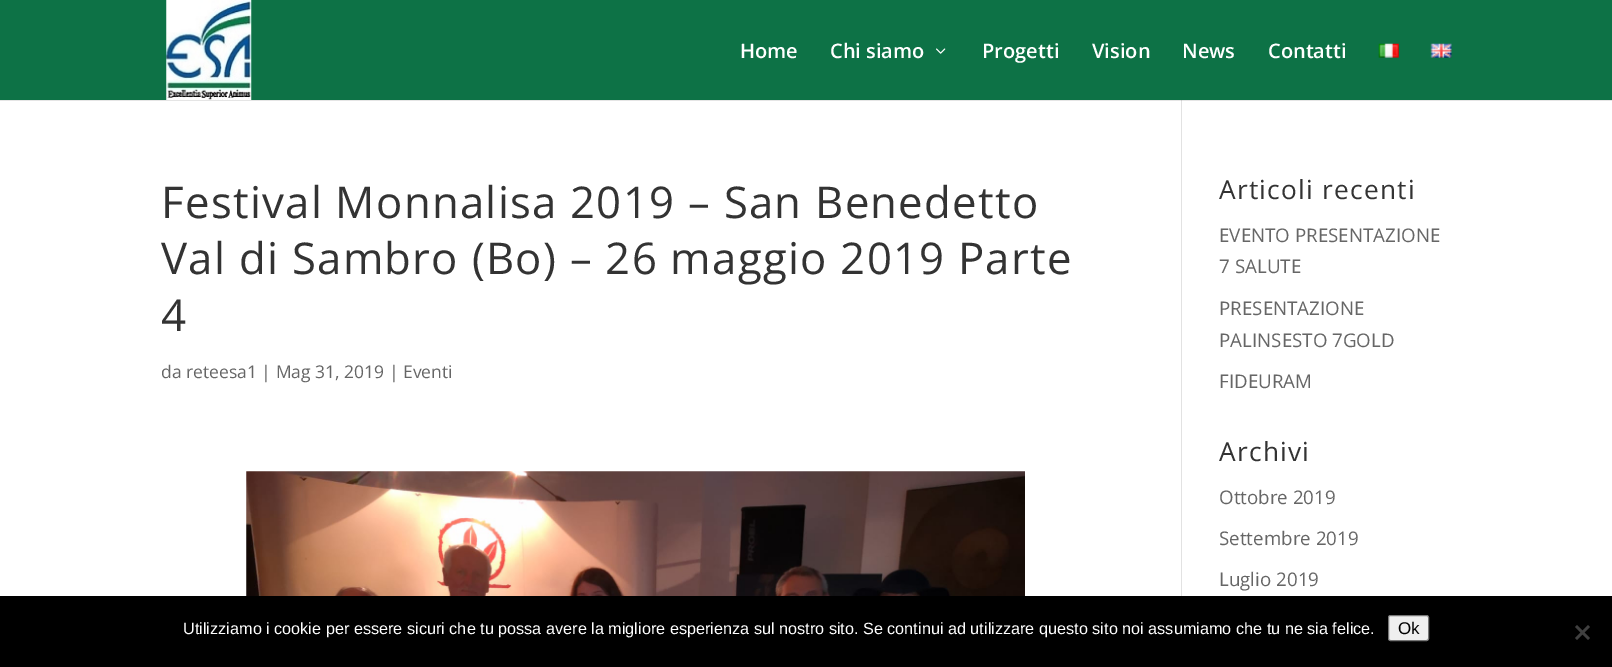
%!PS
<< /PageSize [1612 667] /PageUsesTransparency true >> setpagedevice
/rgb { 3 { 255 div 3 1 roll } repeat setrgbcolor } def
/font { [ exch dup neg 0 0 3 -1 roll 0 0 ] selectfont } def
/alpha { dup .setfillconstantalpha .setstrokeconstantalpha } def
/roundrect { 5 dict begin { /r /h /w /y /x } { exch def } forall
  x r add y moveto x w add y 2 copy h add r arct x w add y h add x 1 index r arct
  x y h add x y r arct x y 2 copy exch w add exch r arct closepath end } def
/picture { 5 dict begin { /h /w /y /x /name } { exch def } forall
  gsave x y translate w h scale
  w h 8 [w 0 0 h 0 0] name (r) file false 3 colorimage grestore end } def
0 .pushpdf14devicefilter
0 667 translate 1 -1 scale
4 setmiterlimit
255 255 255 rgb
0 0 1612 667 rectfill
226 226 226 rgb
1181 100 1 496 rectfill
0.1 alpha
0 0 0 rgb
0 100 moveto 0 101 lineto 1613 101 lineto 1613 1 lineto 1612 1 lineto 1612 100 lineto closepath fill
1 alpha
13 114 70 rgb
0 0 1612 100 rectfill
(img/1.rgb) 166 0 86 100 picture
(img/2.rgb) 936 48 10 6 picture
(img/3.rgb) 1378 43 21 15 picture
(img/4.rgb) 1430 43 22 15 picture
(img/5.rgb) 246 471 779 125 picture
0 0 0 rgb
0 596 1612 71 rectfill
239 239 239 rgb
1388.5 615.5 40 25 2 roundrect gsave fill grestore
118 118 118 rgb
stroke
64 64 64 rgb
1588 625 moveto 1590 627 lineto 1577 640 lineto 1575 638 lineto closepath fill
1575 627 moveto 1577 625 lineto 1590 638 lineto 1588 640 lineto closepath fill
/OpenSans-SemiBold 20 font
255 255 255 rgb
[
  [(Home) 740 58]
  [(Chi siamo) 830 58]
  [(Progetti) 982 58]
  [(Vision) 1092 58]
  [(News) 1182 58]
  [(Contatti) 1268 58]
] { aload pop moveto show } forall
/OpenSans-Regular 43.75 font
51 51 51 rgb
161 218 moveto 1.25 0 (Festival Monnalisa 2019 – San Benedetto) ashow
161 274 moveto 1.25 0 (Val di Sambro \(Bo\) – 26 maggio 2019 Parte) ashow
161 331 moveto 1.25 0 (4) ashow
/OpenSans-Regular 17.5 font
102 102 102 rgb
161 378 moveto (da reteesa1 | Mag 31, 2019 | Eventi) show
/OpenSans-Regular 26.25 font
51 51 51 rgb
1219 199 moveto 1.25 0 (Articoli recenti) ashow
/OpenSans-Regular 18.75 font
102 102 102 rgb
[
  [(EVENTO PRESENTAZIONE) 1219 242]
  [(7 SALUTE) 1219 273]
  [(PRESENTAZIONE) 1219 315]
  [(PALINSESTO 7GOLD) 1219 347]
  [(FIDEURAM) 1219 388]
] { aload pop moveto show } forall
/OpenSans-Regular 26.25 font
51 51 51 rgb
1219 461 moveto 1.25 0 (Archivi) ashow
/OpenSans-Regular 18.75 font
102 102 102 rgb
[
  [(Ottobre 2019) 1219 504]
  [(Settembre 2019) 1219 545]
  [(Luglio 2019) 1219 586]
] { aload pop moveto show } forall
/LiberationSans-Regular 16.25 font
255 255 255 rgb
183 634 moveto (Utilizziamo i cookie per essere sicuri che tu possa avere la migliore esperienza sul nostro sito. Se continui ad utilizzare questo sito noi assumiamo che tu ne sia felice.) show
/LiberationSans-Regular 17 font
0 0 0 rgb
1398 634 moveto (Ok) show
.poppdf14devicefilter showpage
